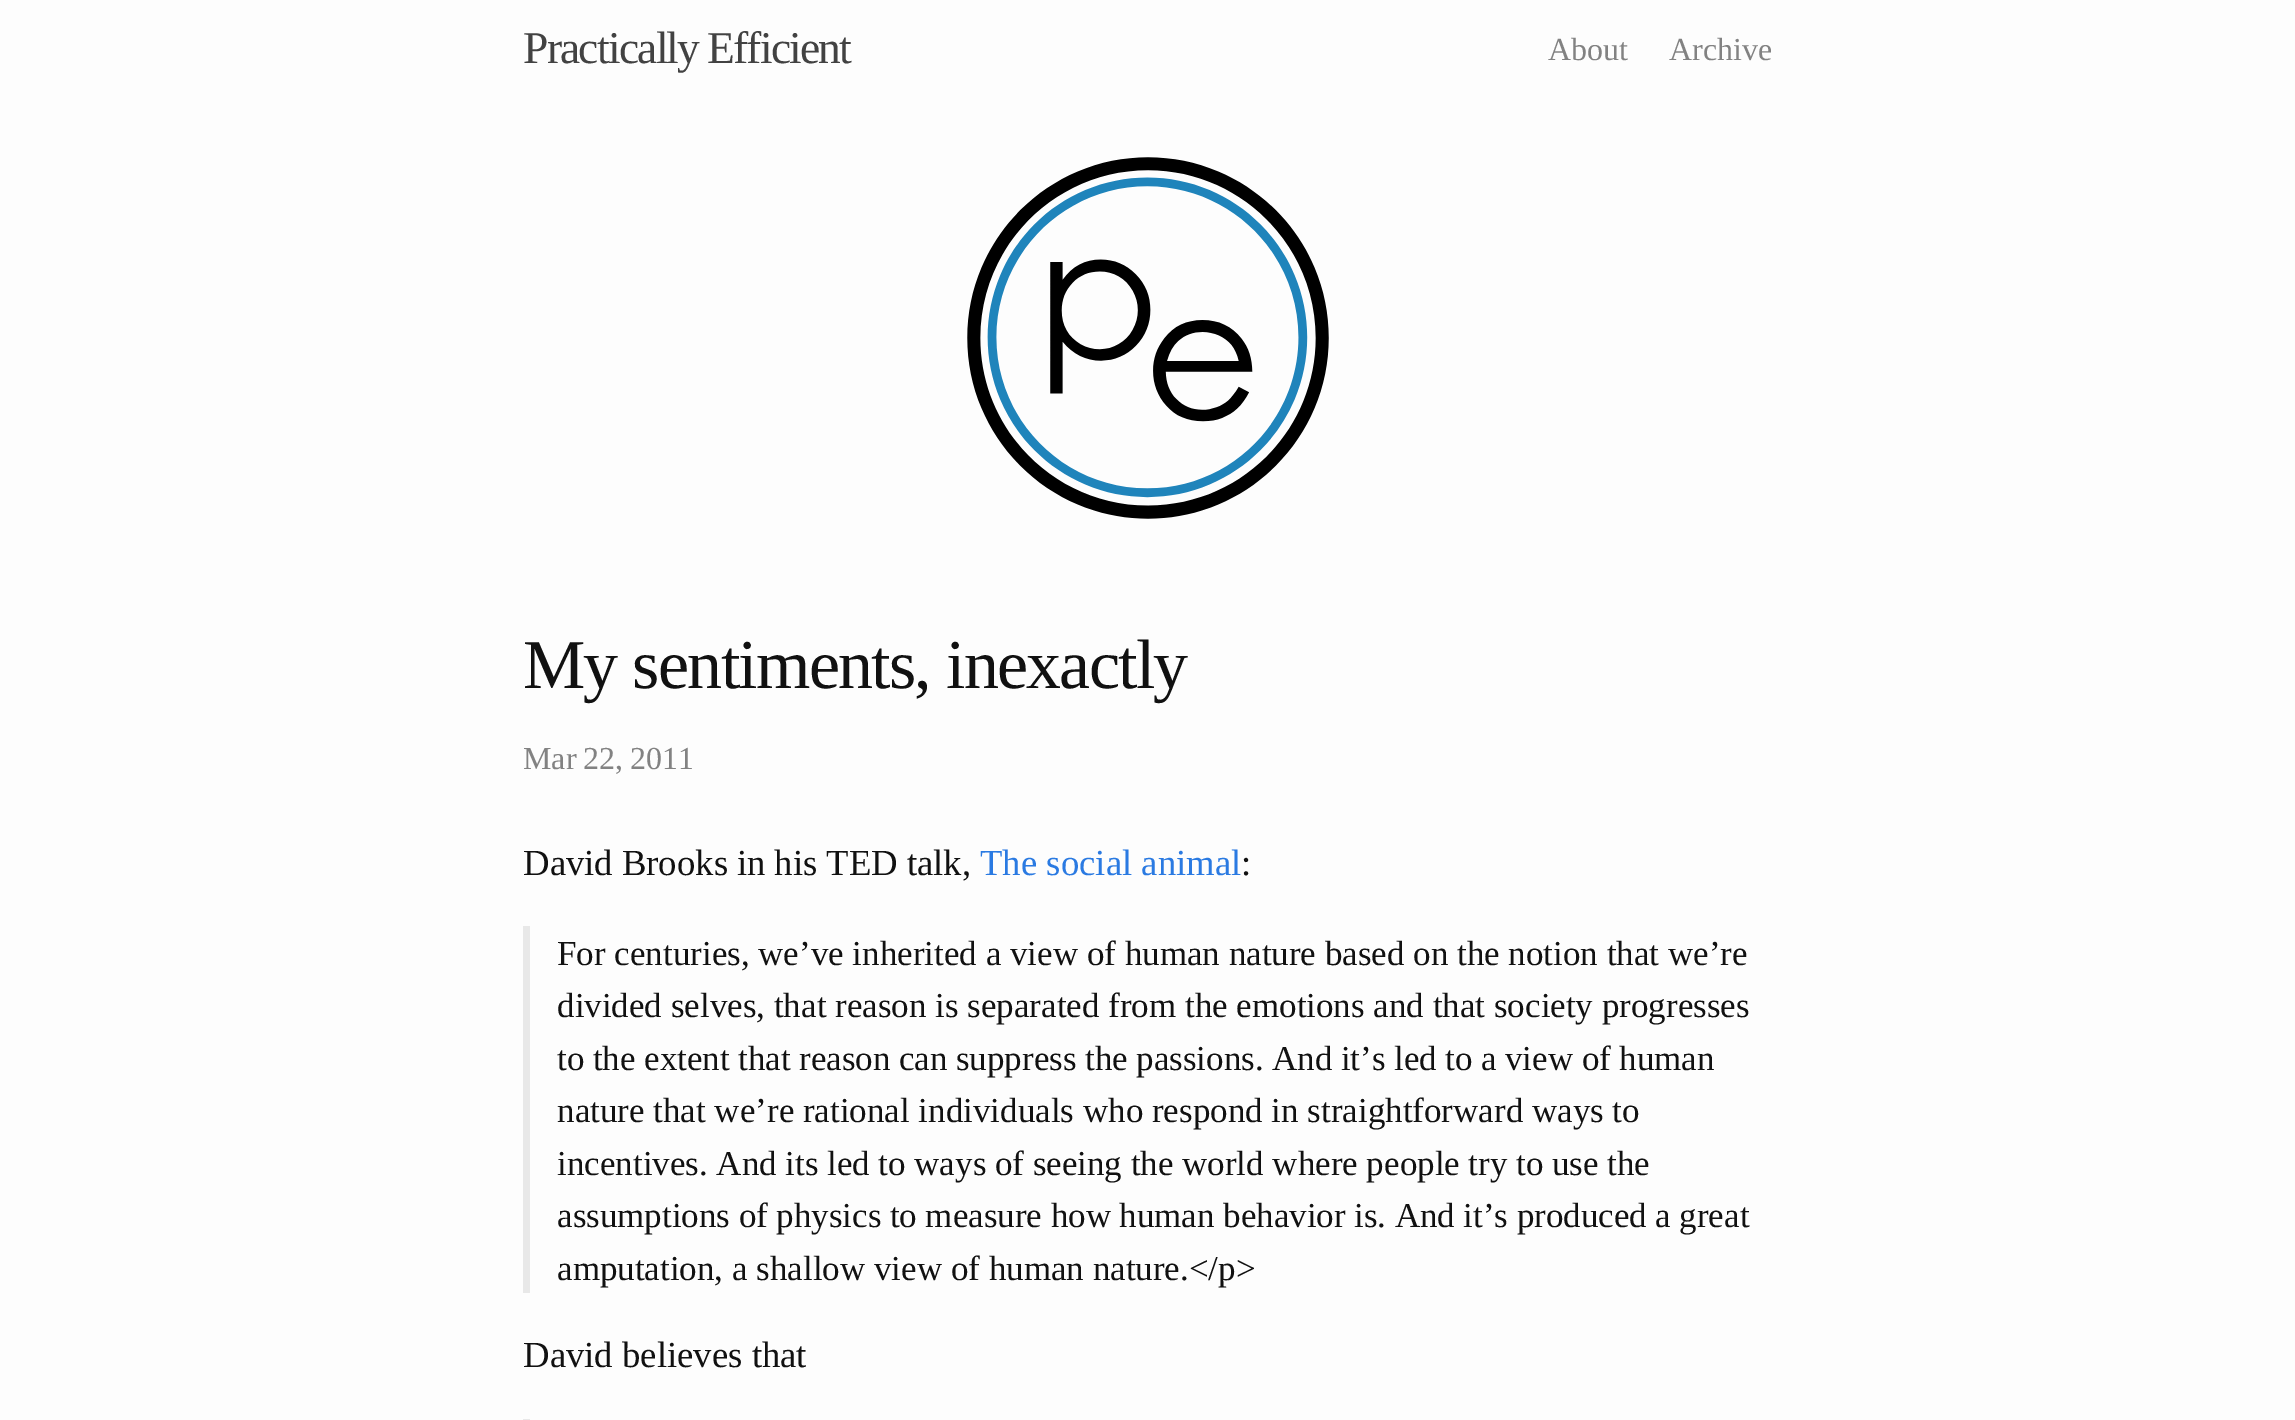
%!PS
<< /PageSize [2295 1420] >> setpagedevice
/rgb { 3 { 255 div 3 1 roll } repeat setrgbcolor } def
/font { [ exch dup neg 0 0 3 -1 roll 0 0 ] selectfont } def
/picture { 5 dict begin { /h /w /y /x /name } { exch def } forall
  gsave x y translate w h scale
  w h 8 [w 0 0 h 0 0] name (r) file false 3 colorimage grestore end } def
0 1420 translate 1 -1 scale
4 setmiterlimit
253 253 253 rgb
0 0 2295 1420 rectfill
(img/1.rgb) 967 157 362 362 picture
232 232 232 rgb
523 926 7 367 rectfill
523 1419 7 1 rectfill
/LiberationSerif-Regular 45.5 font
66 66 66 rgb
523 63 moveto -1 0 32 -1.75 0 (Practically Efficient) awidthshow
/LiberationSerif-Regular 32 font
130 130 130 rgb
1548 60 moveto (About) show
1669 60 moveto (Archive) show
/LiberationSerif-Regular 70 font
17 17 17 rgb
523 688 moveto -1.75 0 (My sentiments, inexactly) ashow
/LiberationSerif-Regular 32 font
130 130 130 rgb
523 769 moveto -1 0 32 (Mar 22, 2011) widthshow
/LiberationSerif-Regular 36.75 font
17 17 17 rgb
523 875 moveto -0.25 0 32 (David Brooks in his TED talk,) widthshow
42 122 226 rgb
980 875 moveto (The social animal) show
17 17 17 rgb
1241 875 moveto (:) show
/LiberationSerif-Regular 35 font
557 965 moveto (For centuries, we’ve inherited a view of human nature based on the notion that we’re) show
557 1017 moveto (divided selves, that reason is separated from the emotions and that society progresses) show
557 1070 moveto -0.25 0 32 (to the extent that reason can suppress the passions. And it’s led to a view of human) widthshow
557 1122 moveto (nature that we’re rational individuals who respond in straightforward ways to) show
557 1175 moveto -0.1 0 32 (incentives. And its led to ways of seeing the world where people try to use the) widthshow
557 1227 moveto -0.25 0 32 (assumptions of physics to measure how human behavior is. And it’s produced a great) widthshow
557 1280 moveto (amputation, a shallow view of human nature.</p>) show
/LiberationSerif-Regular 36.75 font
523 1367 moveto (David believes that) show
showpage
